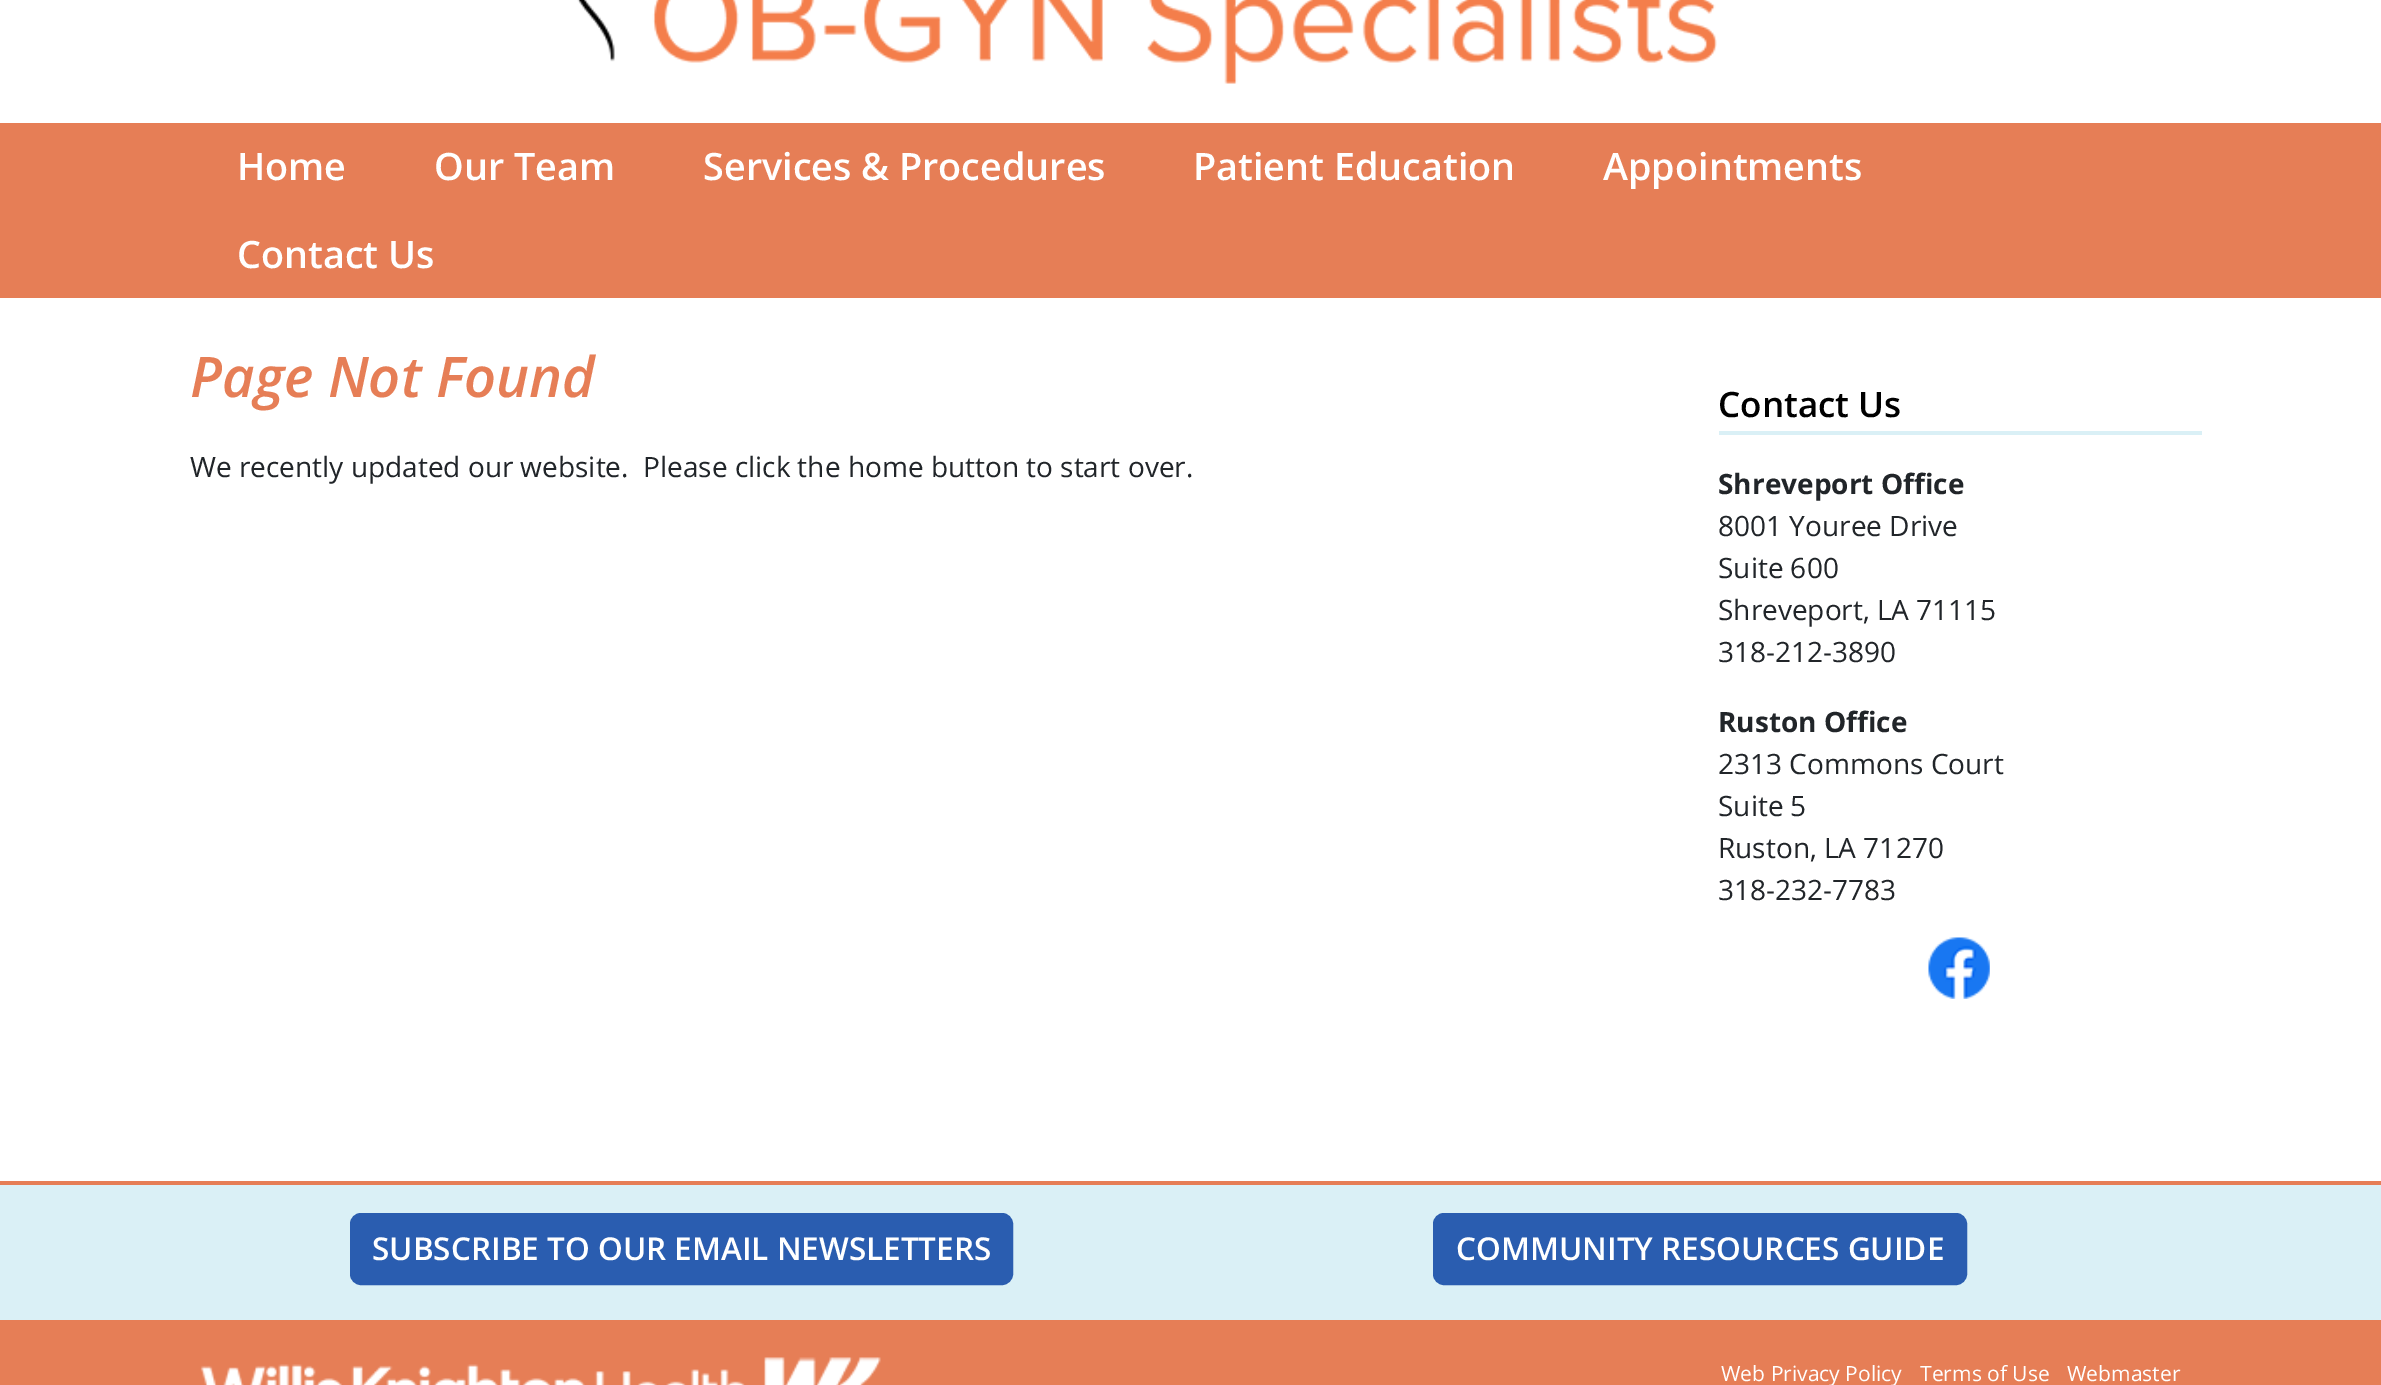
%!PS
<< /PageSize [2381 1385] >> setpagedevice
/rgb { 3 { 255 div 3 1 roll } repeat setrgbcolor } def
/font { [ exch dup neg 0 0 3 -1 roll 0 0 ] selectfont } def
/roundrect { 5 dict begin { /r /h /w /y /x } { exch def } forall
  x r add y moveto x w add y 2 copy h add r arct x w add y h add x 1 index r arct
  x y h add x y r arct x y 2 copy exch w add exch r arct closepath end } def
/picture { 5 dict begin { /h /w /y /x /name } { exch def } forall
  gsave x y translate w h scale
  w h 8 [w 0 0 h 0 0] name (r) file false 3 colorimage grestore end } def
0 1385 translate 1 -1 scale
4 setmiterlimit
230 126 86 rgb
0 0 2381 1385 rectfill
255 255 255 rgb
0 0 2381 123 rectfill
(img/1.rgb) 577 0 1140 84 picture
0 298 2381 883 rectfill
218 240 246 rgb
1719 431 483 4 rectfill
(img/2.rgb) 1928 937 62 62 picture
0 1185 2381 135 rectfill
42 93 176 rgb
351 1214 661 70 10 roundrect gsave fill grestore
2 setlinewidth
stroke
1434 1214 532 70 10 roundrect gsave fill grestore
stroke
(img/3.rgb) 200 1357 681 28 picture
/OpenSans-SemiBold 37.75 font
255 255 255 rgb
[
  [(Home) 237 180]
  [(Our Team) 434 180]
  [(Services & Procedures) 703 180]
  [(Patient Education) 1193 180]
  [(Appointments) 1603 180]
  [(Contact Us) 237 268]
] { aload pop moveto show } forall
/OpenSans-SemiBoldItalic 56 font
230 126 86 rgb
190 397 moveto (Page Not Found) show
/OpenSans-Regular 28 font
33 37 41 rgb
190 477 moveto (We recently updated our website.  Please click the home button to start over.) show
/OpenSans-SemiBold 35 font
0 0 0 rgb
1718 417 moveto (Contact Us) show
/OpenSans-Bold 28 font
33 37 41 rgb
1718 494 moveto (Shreveport Office) show
/OpenSans-Regular 28 font
[
  [(8001 Youree Drive) 1718 536]
  [(Suite 600) 1718 578]
  [(Shreveport, LA 71115) 1718 620]
  [(318-212-3890) 1718 662]
] { aload pop moveto show } forall
/OpenSans-Bold 28 font
1718 732 moveto (Ruston Office) show
/OpenSans-Regular 28 font
[
  [(2313 Commons Court) 1718 774]
  [(Suite 5) 1718 816]
  [(Ruston, LA 71270) 1718 858]
  [(318-232-7783) 1718 900]
] { aload pop moveto show } forall
/OpenSans-SemiBold 31.5 font
255 255 255 rgb
372 1260 moveto (SUBSCRIBE TO OUR EMAIL NEWSLETTERS) show
1456 1260 moveto (COMMUNITY RESOURCES GUIDE) show
/OpenSans-Regular 21 font
[
  [(Web Privacy Policy) 1721 1381]
  [(Terms of Use) 1920 1381]
  [(Webmaster) 2067 1381]
] { aload pop moveto show } forall
showpage
